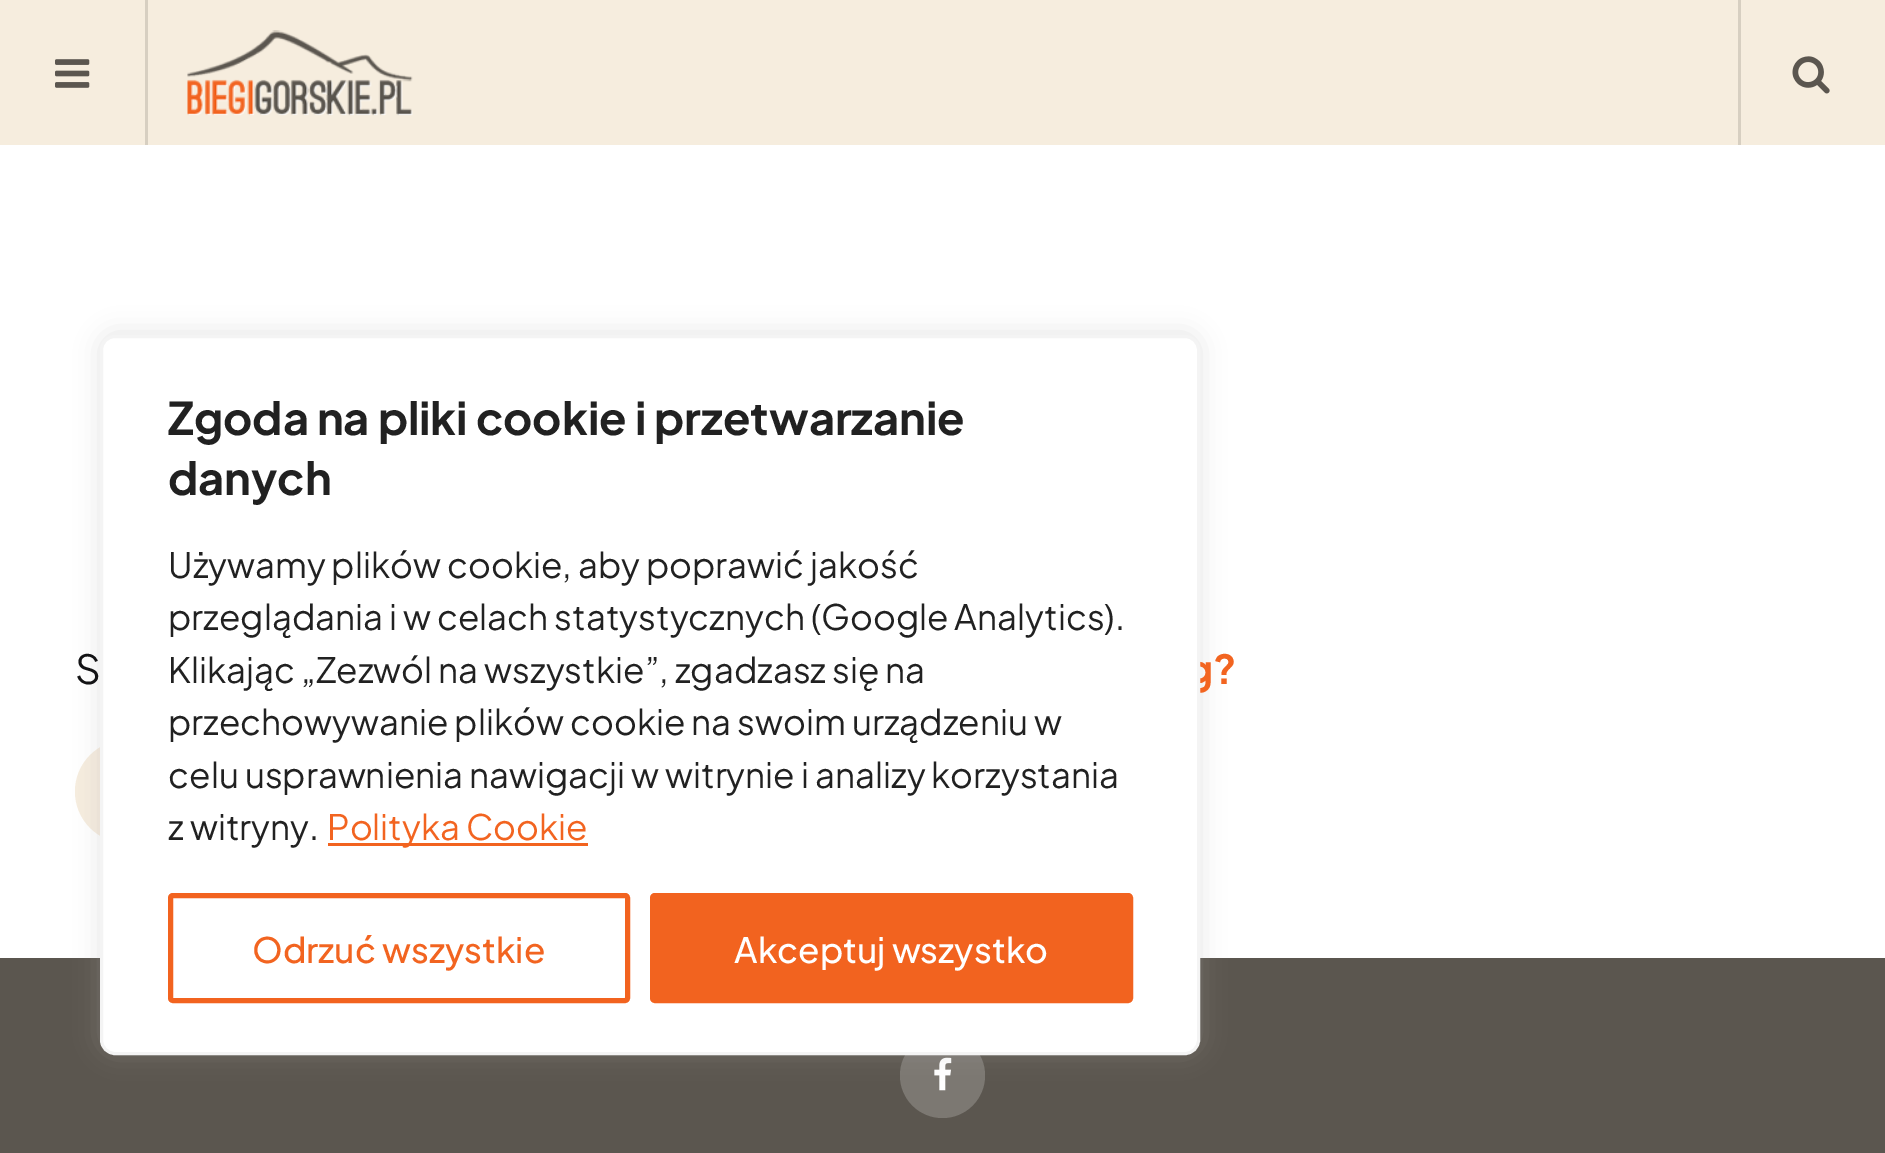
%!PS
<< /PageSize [1885 1153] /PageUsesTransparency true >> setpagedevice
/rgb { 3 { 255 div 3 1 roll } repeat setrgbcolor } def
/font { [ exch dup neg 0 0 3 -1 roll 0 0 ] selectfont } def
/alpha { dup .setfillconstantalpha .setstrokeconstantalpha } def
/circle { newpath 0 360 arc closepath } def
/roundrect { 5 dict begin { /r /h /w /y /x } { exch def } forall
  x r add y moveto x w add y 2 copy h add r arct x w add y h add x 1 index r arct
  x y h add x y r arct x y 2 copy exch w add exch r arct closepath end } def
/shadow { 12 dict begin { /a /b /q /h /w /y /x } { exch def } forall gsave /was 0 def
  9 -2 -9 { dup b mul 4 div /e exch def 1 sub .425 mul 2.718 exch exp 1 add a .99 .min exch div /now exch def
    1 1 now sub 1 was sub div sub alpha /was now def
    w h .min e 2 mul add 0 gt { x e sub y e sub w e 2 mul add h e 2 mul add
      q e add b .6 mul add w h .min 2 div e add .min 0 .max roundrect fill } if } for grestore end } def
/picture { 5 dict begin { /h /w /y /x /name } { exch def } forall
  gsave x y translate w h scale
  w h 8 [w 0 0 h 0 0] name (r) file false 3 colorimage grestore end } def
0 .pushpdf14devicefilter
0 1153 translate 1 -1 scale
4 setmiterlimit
255 255 255 rgb
0 0 1885 1153 rectfill
246 237 222 rgb
0 0 1885 145 rectfill
215 207 193 rgb
145 0 3 145 rectfill
(img/1.rgb) 55 59 35 29 picture
(img/2.rgb) 187 30 226 86 picture
1738 0 3 145 rectfill
(img/3.rgb) 1792 56 38 38 picture
246 237 222 rgb
75 740 353 103 51.5 roundrect fill
91 86 79 rgb
0 958 1885 195 rectfill
124 120 114 rgb
942.5 1075.5 42.5 circle fill
(img/4.rgb) 934 1057 18 34 picture
172 171 171 rgb
100 333 1100 720 15 12.5 0.3 shadow
/PlusJakartaSans-Regular 40 font
19 19 21 rgb
75 684 moveto (S) show
/PlusJakartaSans-Bold 40 font
242 100 32 rgb
1187 684 moveto (g?) show
255 255 255 rgb
101.5 336.5 1097 717 13.5 roundrect gsave fill grestore
244 244 244 rgb
3 setlinewidth
stroke
242 99 31 rgb
652.5 895.5 478 105 2.5 roundrect gsave fill grestore
5 setlinewidth
stroke
/PlusJakartaSans-Medium 35 font
255 255 255 rgb
734 963 moveto (Akceptuj wszystko) show
242 99 31 rgb
170.5 895.5 457 105 2.5 roundrect stroke
242 100 32 rgb
252 963 moveto (Odrzuć wszystkie) show
242 99 31 rgb
328 843 260 3 rectfill
/PlusJakartaSans-Regular 35 font
242 100 32 rgb
327 840 moveto (Polityka Cookie) show
33 33 33 rgb
[
  [(z witryny.) 168 840]
  [(celu usprawnienia nawigacji w witrynie i analizy korzystania) 168 788]
  [(przechowywanie plików cookie na swoim urządzeniu w) 168 735]
  [(Klikając „Zezwól na wszystkie”, zgadzasz się na) 168 683]
  [(przeglądania i w celach statystycznych \(Google Analytics\).) 168 630]
  [(Używamy plików cookie, aby poprawić jakość) 168 578]
] { aload pop moveto show } forall
/PlusJakartaSans-Bold 45 font
168 495 moveto (danych) show
168 435 moveto (Zgoda na pliki cookie i przetwarzanie) show
.poppdf14devicefilter showpage
